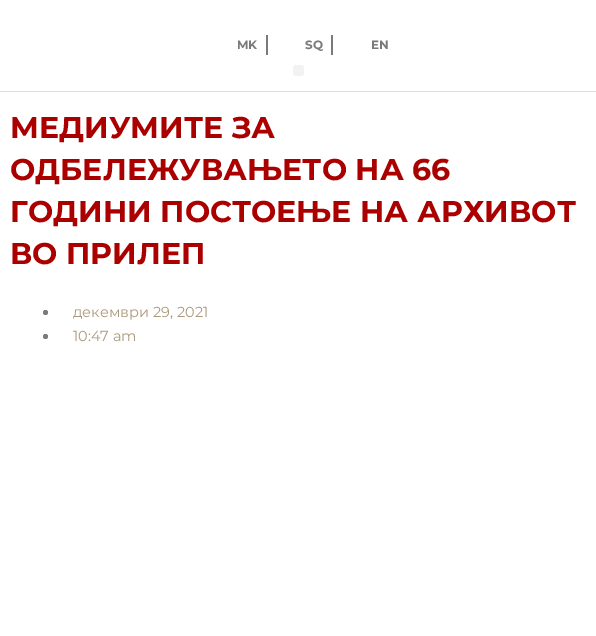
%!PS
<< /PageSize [596 636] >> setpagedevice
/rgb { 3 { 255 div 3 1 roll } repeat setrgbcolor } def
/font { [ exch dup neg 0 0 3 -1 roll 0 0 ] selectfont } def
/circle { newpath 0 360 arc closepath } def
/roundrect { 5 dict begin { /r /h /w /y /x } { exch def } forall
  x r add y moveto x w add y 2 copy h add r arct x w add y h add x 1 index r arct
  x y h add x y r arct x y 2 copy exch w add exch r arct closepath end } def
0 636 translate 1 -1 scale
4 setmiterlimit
255 255 255 rgb
0 0 596 636 rectfill
122 122 122 rgb
331 35 2 20 rectfill
266 35 2 20 rectfill
242 242 242 rgb
293 65 11 11 3 roundrect fill
222 222 222 rgb
0 91 596 1 rectfill
122 122 122 rgb
45.5 312.5 2.5 circle fill
45.5 336.5 2.5 circle fill
/Montserrat-Bold 12 font
[
  [(MK) 237 49]
  [(SQ) 305 49]
  [(EN) 371 49]
] { aload pop moveto show } forall
/Montserrat-Bold 30 font
171 0 0 rgb
[
  [(МЕДИУМИТЕ ЗА) 10 138]
  [(OДБЕЛЕЖУВАЊЕТО НА 66) 10 180]
  [(ГОДИНИ ПОСТОЕЊЕ НА АРХИВОТ) 10 222]
  [(ВО ПРИЛЕП) 10 264]
] { aload pop moveto show } forall
/Montserrat-Regular 14.5 font
171 152 122 rgb
73 317 moveto (декември 29, 2021) show
73 341 moveto (10:47 am) show
showpage
